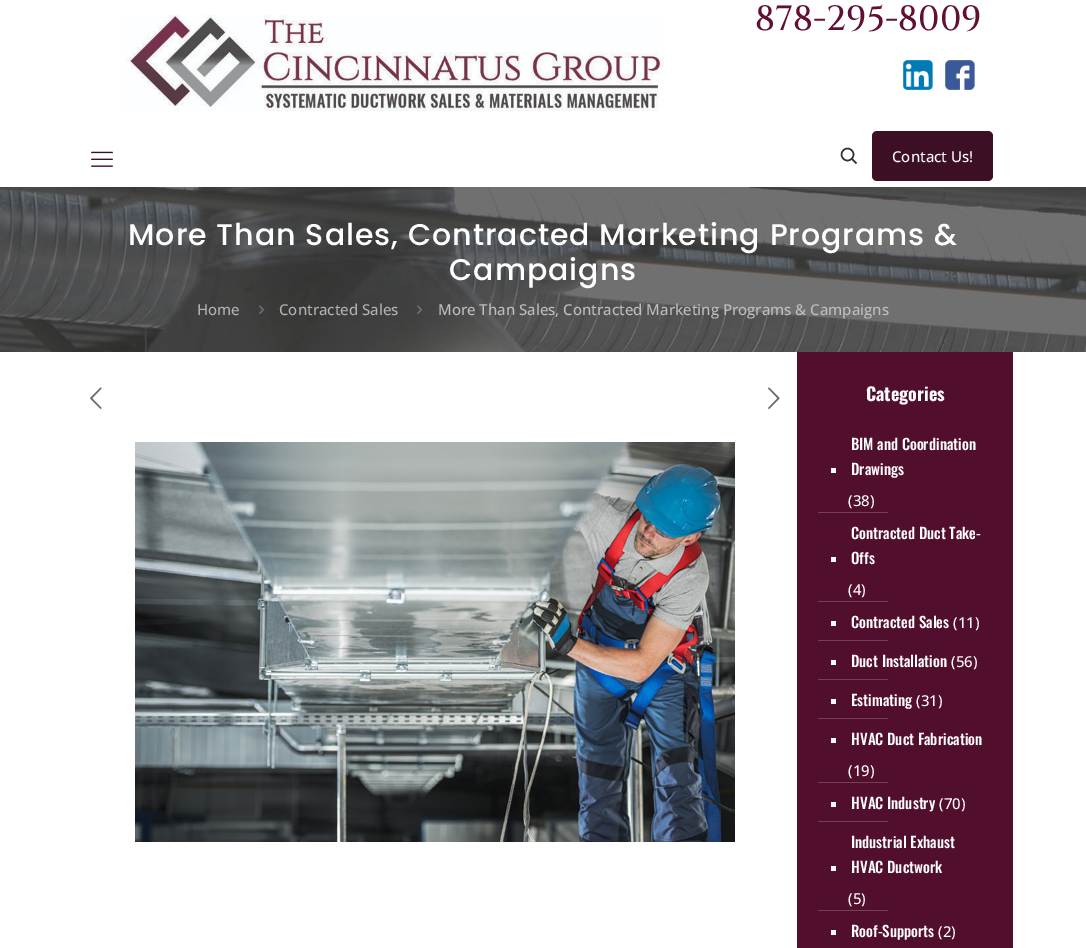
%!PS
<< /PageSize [1086 948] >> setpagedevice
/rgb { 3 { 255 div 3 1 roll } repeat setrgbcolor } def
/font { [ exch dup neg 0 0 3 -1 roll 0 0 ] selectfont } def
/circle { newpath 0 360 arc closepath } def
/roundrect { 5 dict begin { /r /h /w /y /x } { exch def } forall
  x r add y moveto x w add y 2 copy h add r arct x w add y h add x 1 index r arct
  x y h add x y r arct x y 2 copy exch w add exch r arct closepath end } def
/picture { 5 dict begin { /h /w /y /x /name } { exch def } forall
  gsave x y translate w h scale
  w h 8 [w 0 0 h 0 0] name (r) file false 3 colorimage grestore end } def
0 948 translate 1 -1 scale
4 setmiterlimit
255 255 255 rgb
0 0 1086 948 rectfill
(img/1.rgb) 125 15 539 96 picture
(img/2.rgb) 903 60 31 30 picture
(img/3.rgb) 945 60 31 30 picture
(img/4.rgb) 91 151 22 16 picture
51 51 51 rgb
1.5 setlinewidth
847.5 154.5 6 circle stroke
851.5 158.5 moveto 856.5 163.5 lineto stroke
61 15 36 rgb
872 131 121 50 5 roundrect fill
(img/5.rgb) 0 187 1086 165 picture
(img/6.rgb) 259 305 5 9 picture
(img/7.rgb) 417 305 5 9 picture
(img/8.rgb) 90 387 12 22 picture
(img/9.rgb) 768 387 12 22 picture
(img/10.rgb) 135 442 600 400 picture
gsave 797 352 moveto 1013 352 lineto 1013 948 lineto 797 948 lineto closepath clip newpath
<< /ShadingType 2 /ColorSpace /DeviceRGB /Coords [905 352 906 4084] /Extend [true true] /Function << /FunctionType 3 /Domain [0 1] /Functions [<< /FunctionType 2 /Domain [0 1] /C0 [0.322 0.059 0.176] /C1 [0.322 0.059 0.176] /N 1 >> << /FunctionType 2 /Domain [0 1] /C0 [0.322 0.059 0.176] /C1 [0.38 0.059 0.204] /N 1 >>] /Bounds [0.5] /Encode [0 1 0 1] >> >> shfill grestore
[
  [831 468 5 5 255 255 255]
  [818 512 70 1 117 63 87]
  [831 557 5 5 255 255 255]
  [818 601 70 1 117 63 87]
  [831 621 5 5 255 255 255]
  [818 640 70 1 117 63 87]
  [831 660 5 5 255 255 255]
  [818 679 70 1 117 63 87]
  [831 699 5 5 255 255 255]
  [818 718 70 1 117 63 87]
  [831 738 5 5 255 255 255]
  [818 782 70 1 117 63 87]
  [831 802 5 5 255 255 255]
  [818 821 70 1 117 63 87]
  [831 866 5 5 255 255 255]
  [818 910 70 1 117 63 87]
  [831 930 5 5 255 255 255]
] { aload pop rgb rectfill } forall
/Cinzel-Medium 35 font
97 15 52 rgb
755 30 moveto (878-295-8009) show
/OpenSans-Medium 15 font
255 255 255 rgb
892 162 moveto (Contact Us!) show
/Poppins-Medium 30 font
128 245 moveto 1 0 (More Than Sales, Contracted Marketing Programs &) ashow
449 280 moveto 1 0 (Campaigns) ashow
/OpenSans-Medium 15 font
178 178 178 rgb
197 315 moveto (Home) show
279 315 moveto (Contracted Sales) show
190 190 190 rgb
438 315 moveto (More Than Sales, Contracted Marketing Programs & Campaigns) show
/Oswald-Bold 18 font
255 255 255 rgb
866 401 moveto (Categories) show
/Oswald-Medium 15 font
851 450 moveto (BIM and Coordination) show
851 475 moveto (Drawings) show
/OpenSans-Medium 15 font
848 506 moveto (\(38\)) show
/Oswald-Medium 15 font
851 539 moveto (Contracted Duct Take-) show
851 564 moveto (Offs) show
/OpenSans-Medium 15 font
848 595 moveto (\(4\)) show
/Oswald-Medium 15 font
851 628 moveto (Contracted Sales) show
/OpenSans-Medium 15 font
953 628 moveto (\(11\)) show
/Oswald-Medium 15 font
851 667 moveto (Duct Installation) show
/OpenSans-Medium 15 font
951 667 moveto (\(56\)) show
/Oswald-Medium 15 font
851 706 moveto (Estimating) show
/OpenSans-Medium 15 font
916 706 moveto (\(31\)) show
/Oswald-Medium 15 font
851 745 moveto (HVAC Duct Fabrication) show
/OpenSans-Medium 15 font
848 776 moveto (\(19\)) show
/Oswald-Medium 15 font
851 809 moveto (HVAC Industry) show
/OpenSans-Medium 15 font
939 809 moveto (\(70\)) show
/Oswald-Medium 15 font
851 848 moveto (Industrial Exhaust) show
851 873 moveto (HVAC Ductwork) show
/OpenSans-Medium 15 font
848 904 moveto (\(5\)) show
/Oswald-Medium 15 font
851 937 moveto (Roof-Supports) show
/OpenSans-Medium 15 font
938 937 moveto (\(2\)) show
showpage
